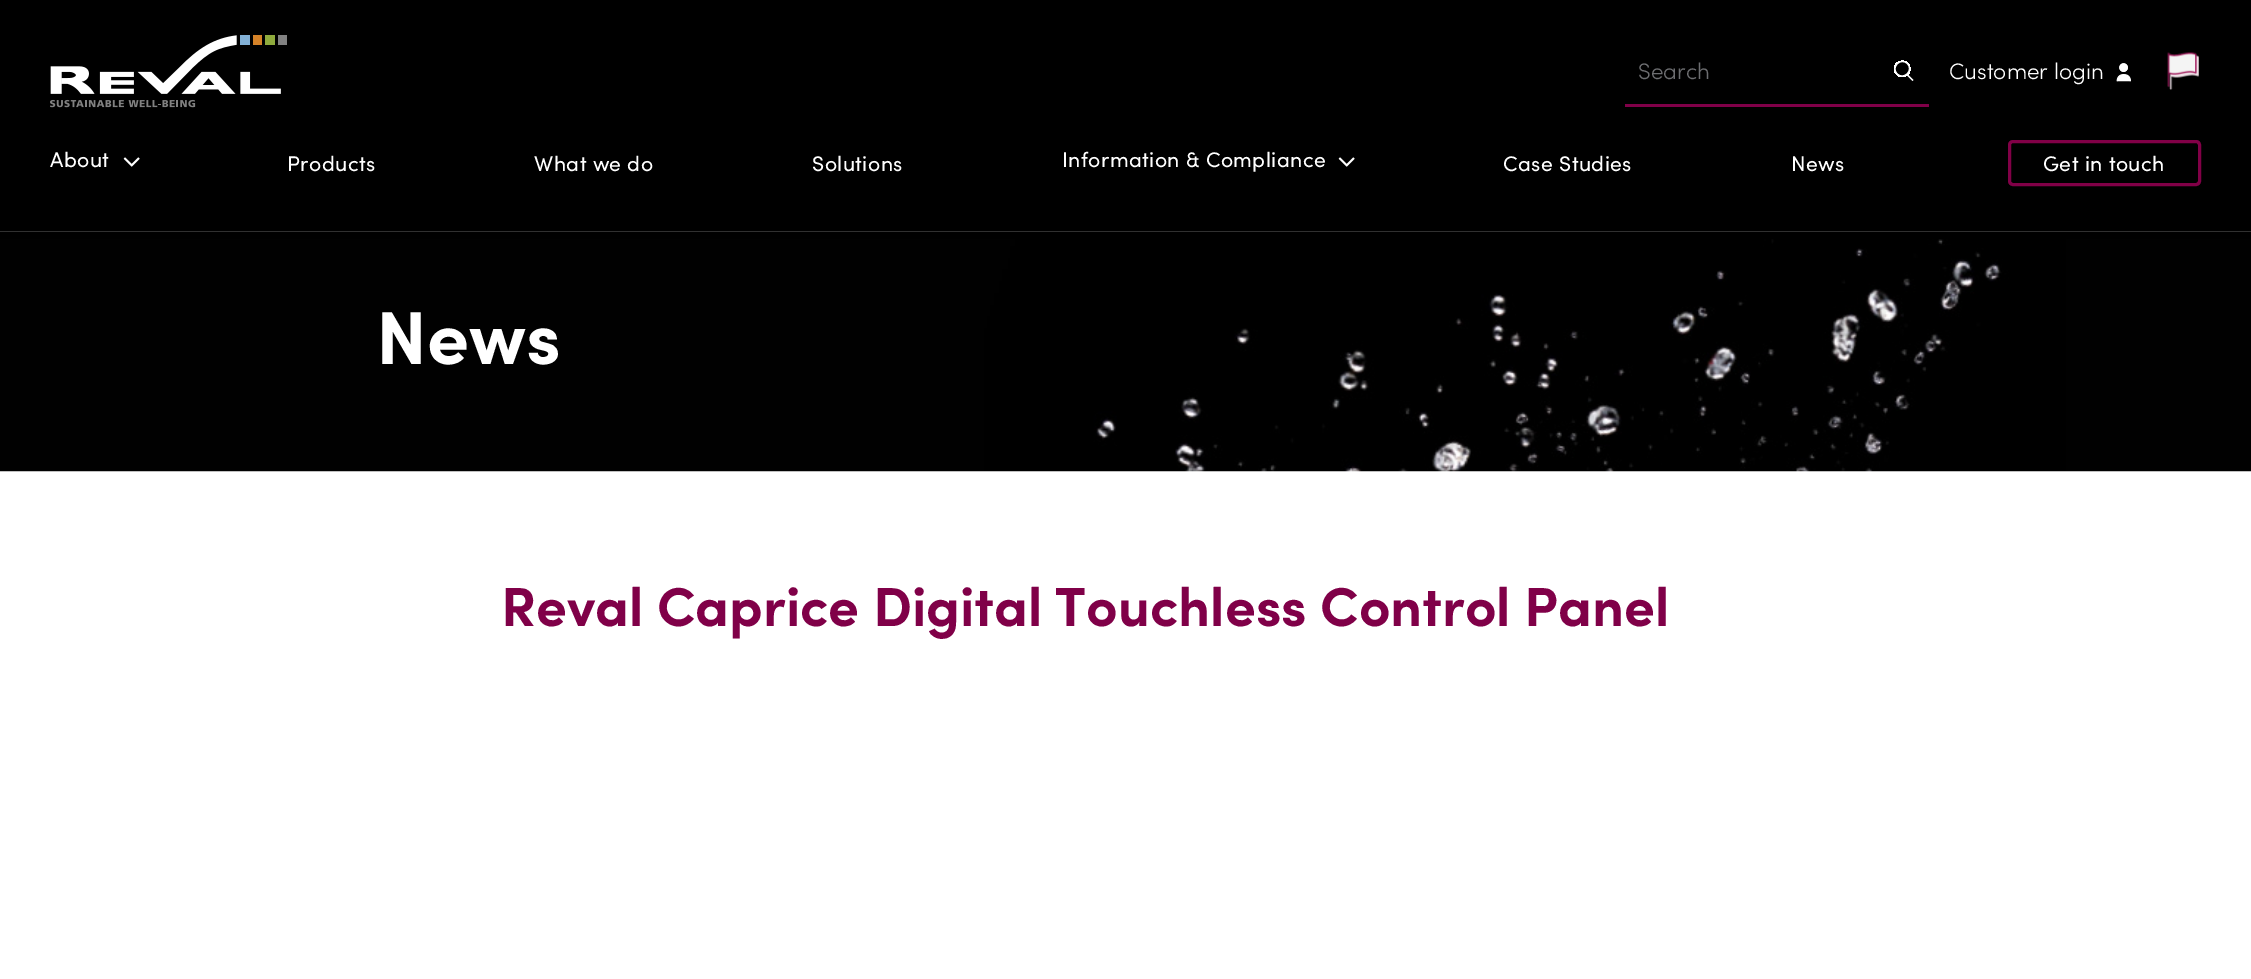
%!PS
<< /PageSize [2251 979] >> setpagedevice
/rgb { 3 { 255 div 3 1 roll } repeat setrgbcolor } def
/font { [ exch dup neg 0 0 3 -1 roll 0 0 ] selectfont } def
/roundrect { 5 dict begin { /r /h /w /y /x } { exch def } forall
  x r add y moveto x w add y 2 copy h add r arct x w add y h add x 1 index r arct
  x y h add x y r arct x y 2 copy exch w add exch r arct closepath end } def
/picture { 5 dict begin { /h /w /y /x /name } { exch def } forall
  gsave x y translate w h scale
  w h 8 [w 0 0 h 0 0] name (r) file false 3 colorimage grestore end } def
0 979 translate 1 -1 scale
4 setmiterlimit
255 255 255 rgb
0 0 2251 979 rectfill
0 0 0 rgb
0 0 2251 239 rectfill
(img/1.rgb) 50 35 237 73 picture
128 0 72 rgb
1625 104 304 3 rectfill
gsave
1908 63 moveto 1911 66.5 1911 71.5 1908 74.5 curveto 1905 77.5 1900 77.5 1896.5 74.5 curveto 1893.5 71.5 1893.5 66.5 1896.5 63 curveto 1900 60 1905 60 1908 63 curveto closepath clip newpath
255 255 255 rgb
2.9 setlinewidth
1908 63 moveto 1915.5 70.5 1904 82 1896.5 74.5 curveto 1889 67 1900.5 55.5 1908 63 curveto closepath stroke
grestore
255 255 255 rgb
1.4 setlinewidth
1907.5 75 moveto 1913 80.5 lineto stroke
(img/2.rgb) 2116 63 15 19 picture
(img/3.rgb) 2167 52 32 38 picture
(img/4.rgb) 123 157 17 10 picture
(img/4.rgb) 1338 157 17 10 picture
129 0 71 rgb
3 setlinewidth
2009.5 141.5 190 43 3.5 roundrect stroke
(img/5.rgb) 0 239 2251 233 picture
48 48 48 rgb
0 231 2251 1 rectfill
/Sofia-Light 22.5 font
109 110 113 rgb
1638 79 moveto (Search) show
255 255 255 rgb
1949 79 moveto (Customer login) show
/Sofia-Regular 21.25 font
50 167 moveto 0.4 0 (About) ashow
287 171 moveto 0.4 0 (Products) ashow
534 171 moveto 0.4 0 (What we do) ashow
812 171 moveto 0.4 0 (Solutions) ashow
1062 167 moveto 0.4 0 (Information & Compliance) ashow
1503 171 moveto 0.4 0 (Case Studies) ashow
1791 171 moveto 0.4 0 (News) ashow
2043 171 moveto 0.4 0 (Get in touch) ashow
/Sofia-Bold 75 font
376 364 moveto (News) show
/Sofia-Bold 55 font
128 0 72 rgb
501 626 moveto (Reval Caprice Digital Touchless Control Panel) show
showpage
